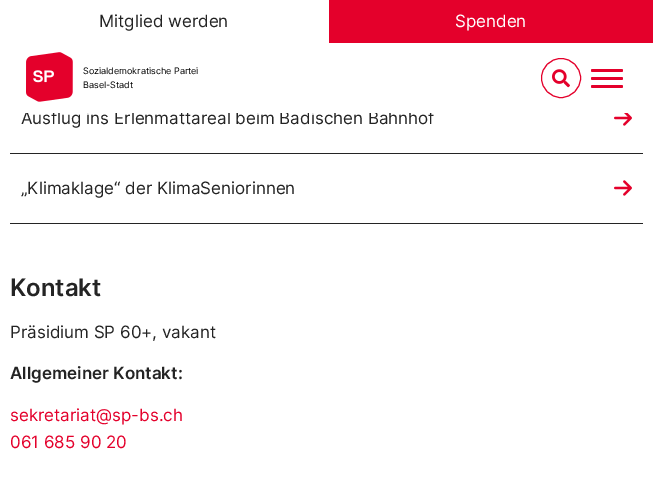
%!PS
<< /PageSize [653 499] >> setpagedevice
/rgb { 3 { 255 div 3 1 roll } repeat setrgbcolor } def
/font { [ exch dup neg 0 0 3 -1 roll 0 0 ] selectfont } def
/circle { newpath 0 360 arc closepath } def
/roundrect { 5 dict begin { /r /h /w /y /x } { exch def } forall
  x r add y moveto x w add y 2 copy h add r arct x w add y h add x 1 index r arct
  x y h add x y r arct x y 2 copy exch w add exch r arct closepath end } def
/picture { 5 dict begin { /h /w /y /x /name } { exch def } forall
  gsave x y translate w h scale
  w h 8 [w 0 0 h 0 0] name (r) file false 3 colorimage grestore end } def
0 499 translate 1 -1 scale
4 setmiterlimit
255 255 255 rgb
0 0 653 499 rectfill
228 0 43 rgb
329 0 324 43 rectfill
(img/1.rgb) 26 52 47 50 picture
561 78 19.5 circle stroke
(img/2.rgb) 552 69 18 19 picture
591 69 32 3 1.5 roundrect fill
591 77 32 3 1.5 roundrect fill
591 85 32 3 1.5 roundrect fill
36 36 36 rgb
10 223 633 1 rectfill
(img/3.rgb) 614 113 18 13 picture
10 153 633 1 rectfill
(img/4.rgb) 614 180 18 16 picture
/Inter-Regular 17 font
99 27 moveto (Mitglied werden) show
255 255 255 rgb
455 27 moveto (Spenden) show
/Inter-Regular 9 font
0 0 0 rgb
83 74 moveto (Sozialdemokratische Partei) show
83 88 moveto (Basel-Stadt) show
/Inter-Regular 17 font
36 36 36 rgb
21 124 moveto (Ausflug ins Erlenmattareal beim Badischen Bahnhof) show
255 255 255 rgb
25 111 410 2 rectfill
36 36 36 rgb
21 194 moveto („Klimaklage“ der KlimaSeniorinnen) show
/Inter-SemiBold 24 font
10 296 moveto (Kontakt) show
/Inter-Regular 17 font
10 338 moveto (Präsidium SP 60+, vakant) show
/Inter-SemiBold 17 font
10 379 moveto (Allgemeiner Kontakt:) show
/Inter-Regular 17 font
228 0 43 rgb
10 421 moveto (sekretariat@sp-bs.ch) show
10 448 moveto (061 685 90 20) show
showpage
